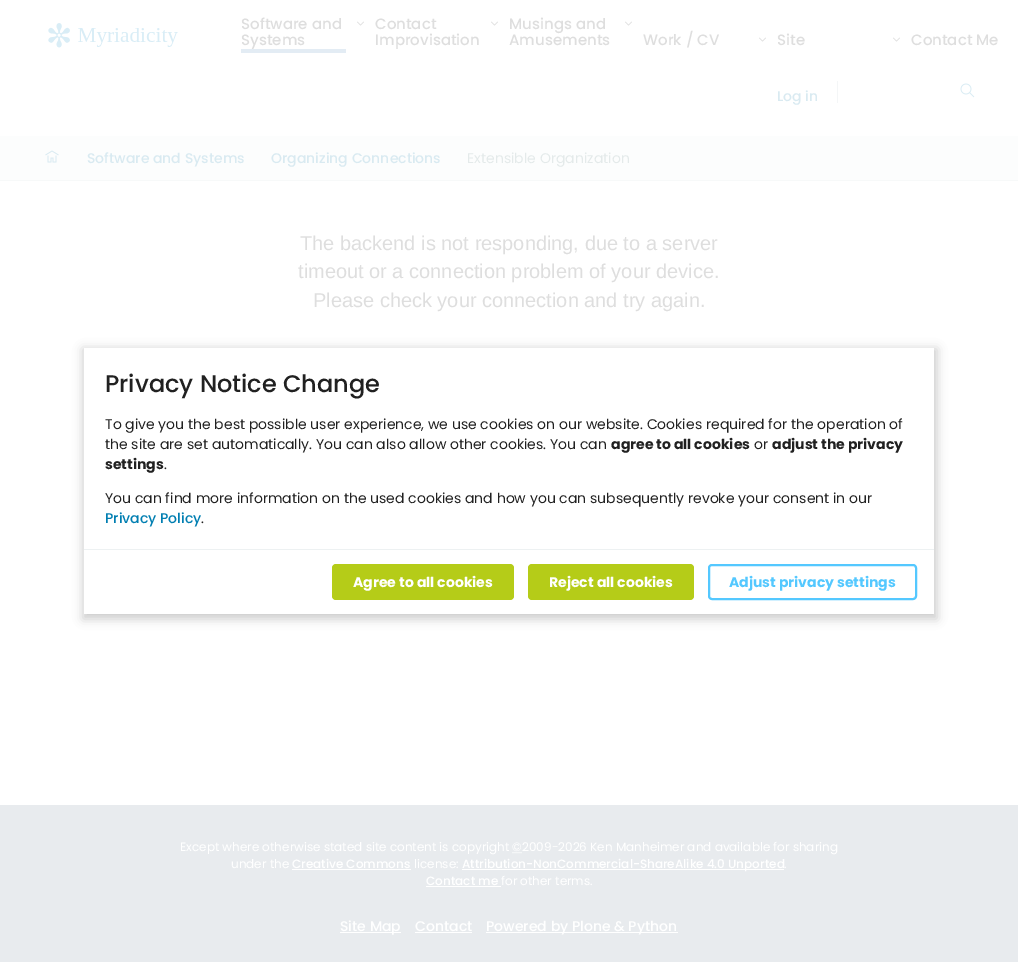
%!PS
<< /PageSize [1018 962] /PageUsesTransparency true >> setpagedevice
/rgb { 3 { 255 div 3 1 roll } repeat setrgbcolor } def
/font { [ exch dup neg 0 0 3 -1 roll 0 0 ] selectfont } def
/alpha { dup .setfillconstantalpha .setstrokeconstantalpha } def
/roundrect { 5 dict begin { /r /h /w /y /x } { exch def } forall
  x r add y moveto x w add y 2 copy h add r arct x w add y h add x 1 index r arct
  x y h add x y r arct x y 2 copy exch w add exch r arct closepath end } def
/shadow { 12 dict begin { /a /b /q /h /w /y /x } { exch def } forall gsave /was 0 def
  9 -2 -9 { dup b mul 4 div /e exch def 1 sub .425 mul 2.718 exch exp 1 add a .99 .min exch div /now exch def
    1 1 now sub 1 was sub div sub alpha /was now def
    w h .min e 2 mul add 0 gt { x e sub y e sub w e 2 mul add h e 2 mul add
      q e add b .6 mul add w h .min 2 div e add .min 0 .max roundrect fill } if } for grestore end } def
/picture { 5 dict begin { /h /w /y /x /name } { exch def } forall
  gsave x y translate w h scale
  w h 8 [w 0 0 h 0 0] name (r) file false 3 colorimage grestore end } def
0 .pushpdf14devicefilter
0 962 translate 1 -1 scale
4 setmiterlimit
255 255 255 rgb
0 0 1018 962 rectfill
(img/1.rgb) 48 23 130 25 picture
227 236 244 rgb
241 49 105 4 rectfill
(img/2.rgb) 357 21 7 5 picture
(img/2.rgb) 491 21 7 5 picture
(img/2.rgb) 625 21 7 5 picture
(img/2.rgb) 759 37 7 5 picture
(img/2.rgb) 893 37 7 5 picture
244 246 247 rgb
837 81 1 22 rectfill
(img/3.rgb) 960 83 15 15 picture
252 253 253 rgb
0 136 1018 44 rectfill
247 249 249 rgb
0 180 1018 1 rectfill
(img/4.rgb) 45 150 14 13 picture
232 235 238 rgb
0 805 1018 157 rectfill
255 255 255 rgb
[1 1] 0 setdash
512.5 852.5 moveto 522 852.5 lineto stroke
[
  [292 869 119 1 255 255 255]
  [462 869 322 1 255 255 255]
  [426 886 75 1 255 255 255]
  [340 932 61 1 255 255 255]
  [415 932 57 1 255 255 255]
  [486 932 192 1 255 255 255]
] { aload pop rgb rectfill } forall
0 0 0 rgb
83 349 854 270 0 5 0.2 shadow
255 255 255 rgb
84 348 850 266 rectfill
237 241 242 rgb
84 549 850 1 rectfill
181 204 24 rgb
332 564 182 36 4 roundrect fill
528 564 166 36 4 roundrect fill
84 200 255 rgb
2 setlinewidth
[] 0 setdash
709 565 207 34 3 roundrect stroke
/Poppins-Medium 15 font
222 222 222 rgb
[
  [(Software and) 241 29]
  [(Systems) 241 45]
  [(Contact) 375 29]
  [(Improvisation) 375 45]
  [(Musings and) 509 29]
  [(Amusements) 509 45]
  [(Work / CV) 643 45]
  [(Site) 777 45]
  [(Contact Me) 911 45]
] { aload pop moveto show } forall
/Poppins-Medium 14 font
217 234 241 rgb
[
  [(Log in) 777 101]
  [(Software and Systems) 87 163]
  [(Organizing Connections) 271 163]
] { aload pop moveto show } forall
/Poppins-Regular 14 font
228 234 234 rgb
467 163 moveto (Extensible Organization) show
/LiberationSans-Regular 20 font
222 222 222 rgb
[
  [(The backend is not responding, due to a server) 300 250]
  [(timeout or a connection problem of your device.) 298 278]
  [(Please check your connection and try again.) 313 307]
] { aload pop moveto show } forall
/Poppins-Regular 12 font
255 255 255 rgb
180 851 moveto (Except where otherwise stated site content is copyright ©2009-2026 Ken Manheimer and available for sharing) show
231 868 moveto (under the) show
/Poppins-Medium 12 font
292 868 moveto (Creative Commons) show
/Poppins-Regular 12 font
414 868 moveto (license:) show
/Poppins-Medium 12 font
462 868 moveto (Attribution-NonCommercial-ShareAlike 4.0 Unported) show
/Poppins-Regular 12 font
784 868 moveto (.) show
/Poppins-Medium 12 font
426 885 moveto (Contact me) show
/Poppins-Regular 12 font
501 885 moveto (for other terms.) show
/Poppins-Medium 14 font
[
  [(Site Map) 340 931]
  [(Contact) 415 931]
  [(Powered by Plone & Python) 486 931]
] { aload pop moveto show } forall
/Poppins-Medium 24 font
33 33 33 rgb
105 392 moveto (Privacy Notice Change) show
/Poppins-Regular 14 font
105 429 moveto (To give you the best possible user experience, we use cookies on our website. Cookies required for the operation of) show
105 449 moveto (the site are set automatically. You can also allow other cookies. You can) show
/Poppins-Bold 14 font
611 449 moveto (agree to all cookies) show
/Poppins-Regular 14 font
754 449 moveto (or) show
/Poppins-Bold 14 font
772 449 moveto (adjust the privacy) show
105 469 moveto (settings) show
/Poppins-Regular 14 font
164 469 moveto (.) show
105 503 moveto (You can find more information on the used cookies and how you can subsequently revoke your consent in our) show
/Poppins-Medium 14 font
0 126 177 rgb
105 523 moveto (Privacy Policy) show
/Poppins-Regular 14 font
33 33 33 rgb
201 523 moveto (.) show
/Poppins-Bold 14 font
255 255 255 rgb
353 587 moveto (Agree to all cookies) show
549 587 moveto (Reject all cookies) show
84 200 255 rgb
729 587 moveto (Adjust privacy settings) show
.poppdf14devicefilter showpage
